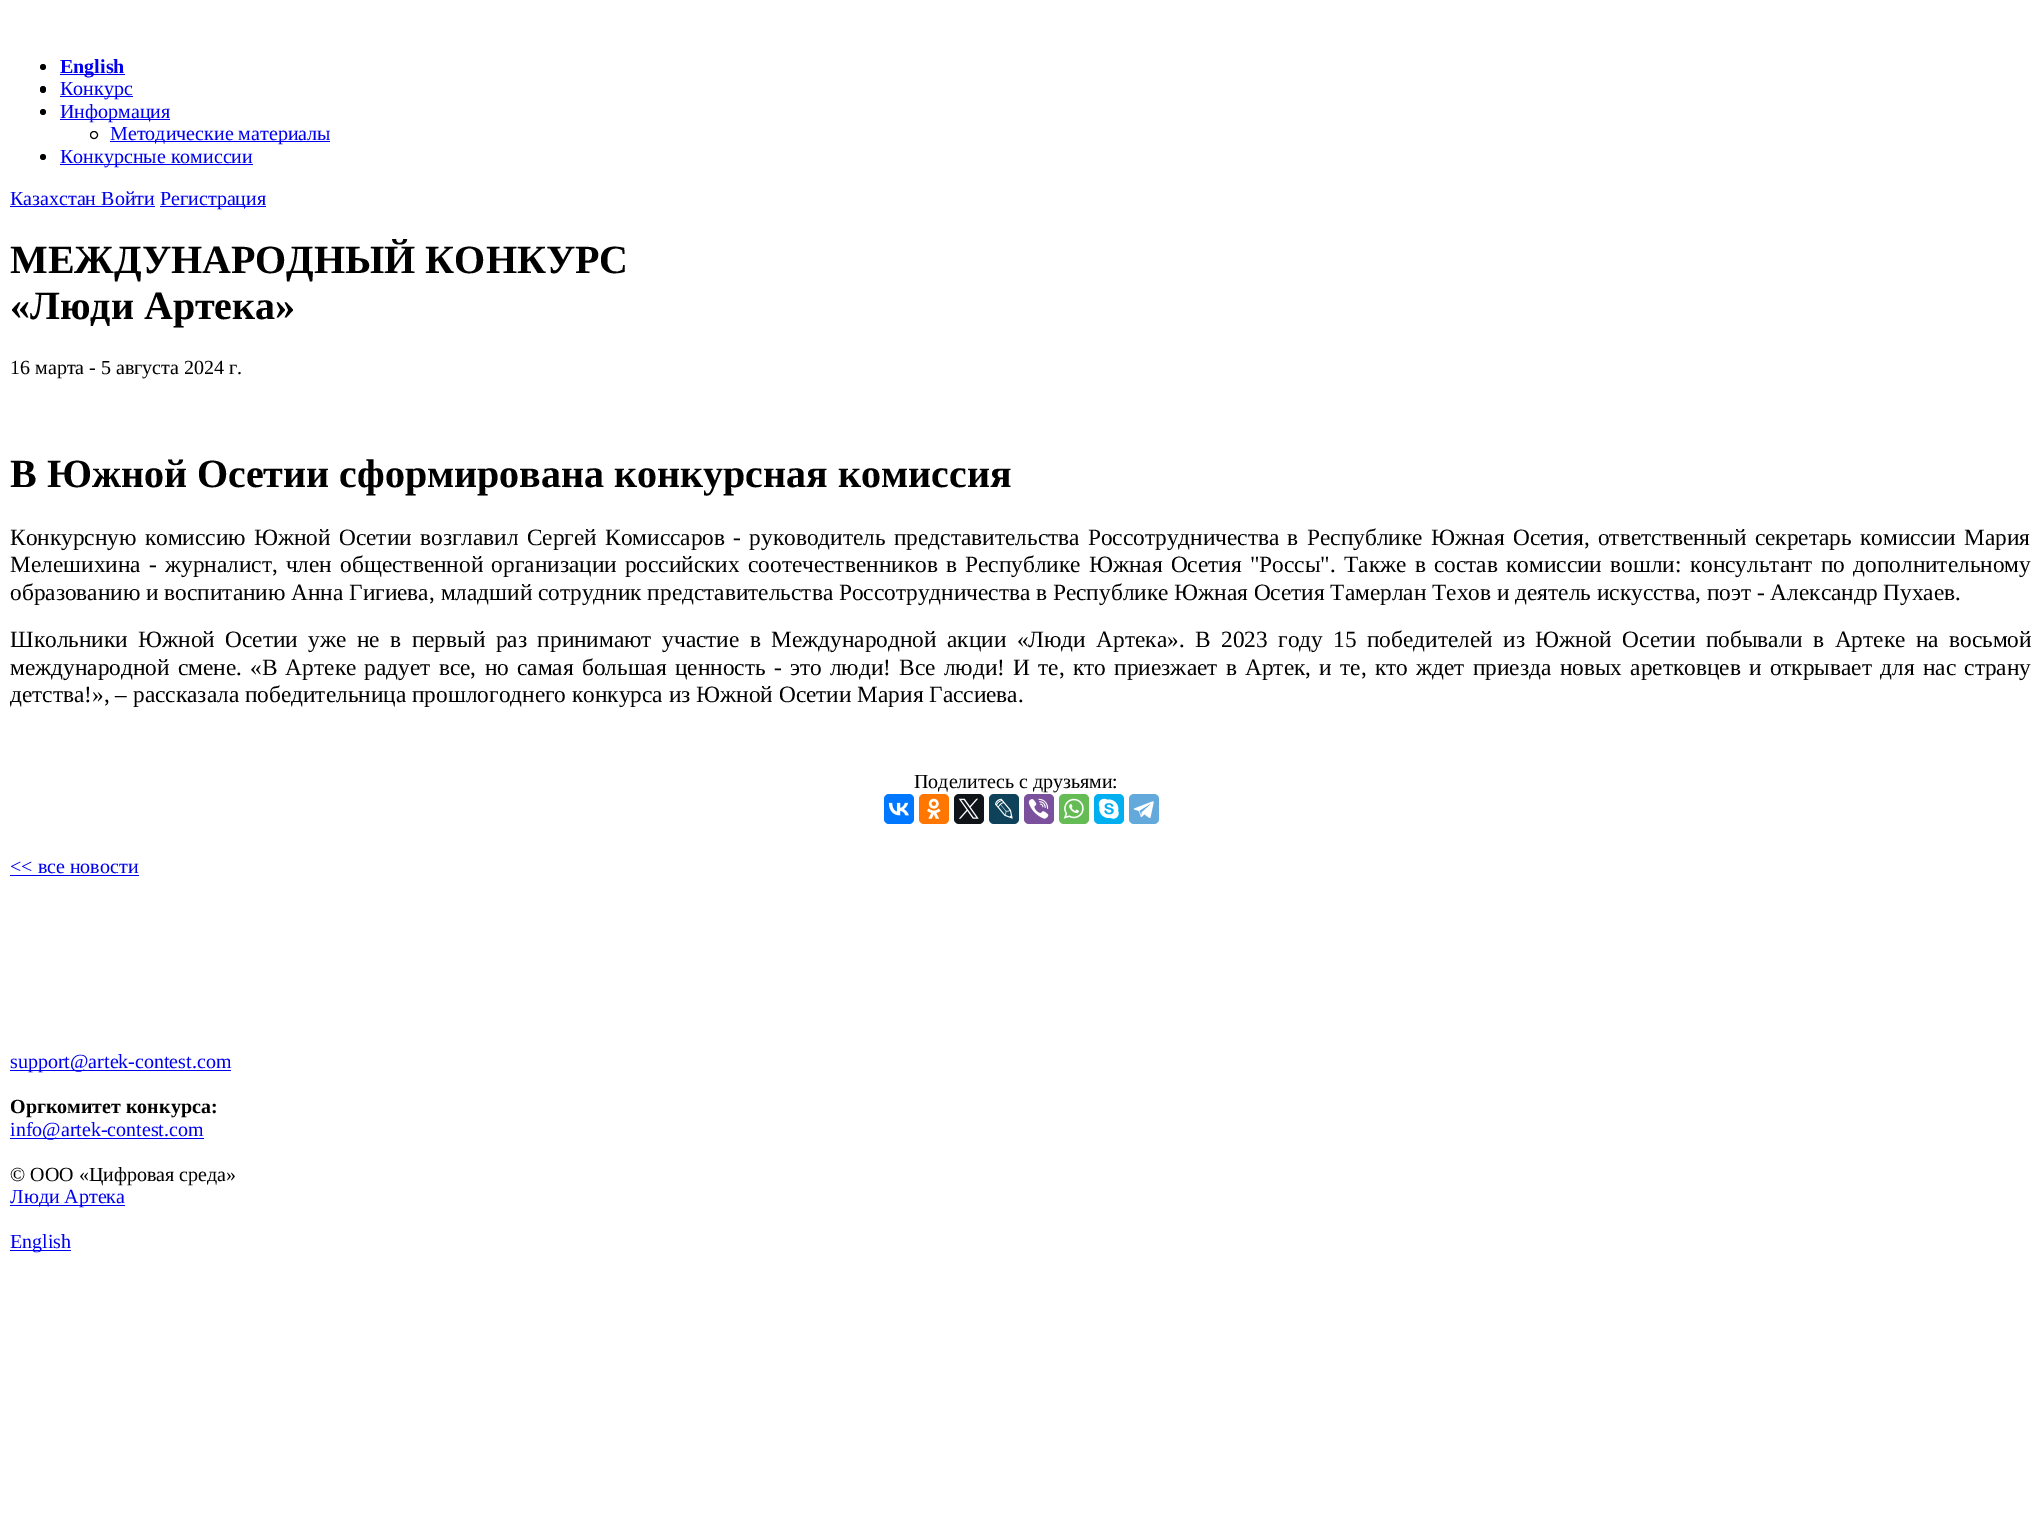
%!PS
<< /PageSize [2041 1522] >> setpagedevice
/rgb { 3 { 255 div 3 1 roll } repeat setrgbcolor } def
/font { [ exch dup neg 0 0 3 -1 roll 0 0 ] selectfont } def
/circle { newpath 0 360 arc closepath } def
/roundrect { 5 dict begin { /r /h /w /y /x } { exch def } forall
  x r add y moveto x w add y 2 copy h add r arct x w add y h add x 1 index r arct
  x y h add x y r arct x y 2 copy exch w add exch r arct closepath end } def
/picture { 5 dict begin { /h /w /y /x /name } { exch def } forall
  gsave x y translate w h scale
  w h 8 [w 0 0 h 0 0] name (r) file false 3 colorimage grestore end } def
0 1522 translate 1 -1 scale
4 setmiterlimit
255 255 255 rgb
0 0 2041 1522 rectfill
0 0 0 rgb
43 67 3 circle fill
0 0 238 rgb
60 74 65 1 rectfill
0 0 0 rgb
40 86 6 7 3 roundrect fill
0 0 238 rgb
60 96 73 1 rectfill
0 0 0 rgb
43 112 3 circle fill
0 0 238 rgb
60 119 110 1 rectfill
0 0 0 rgb
94 135 3.5 circle stroke
0 0 238 rgb
110 141 220 1 rectfill
0 0 0 rgb
43 157 3 circle fill
[
  [60 164 193 1 0 0 238]
  [10 206 145 1 0 0 238]
  [160 206 106 1 0 0 238]
] { aload pop rgb rectfill } forall
0 119 255 rgb
884 794 30 30 5 roundrect fill
(img/1.rgb) 888 802 21 14 picture
255 119 0 rgb
919 794 30 30 5 roundrect fill
(img/2.rgb) 927 798 14 21 picture
15 20 25 rgb
954 794 30 30 5 roundrect fill
(img/3.rgb) 958 798 21 21 picture
13 66 90 rgb
989 794 30 30 5 roundrect fill
(img/4.rgb) 995 798 18 21 picture
123 81 157 rgb
1024 794 30 30 5 roundrect fill
(img/5.rgb) 1028 798 21 21 picture
101 188 84 rgb
1059 794 30 30 5 roundrect fill
(img/6.rgb) 1063 798 21 21 picture
0 175 240 rgb
1094 794 30 30 5 roundrect fill
(img/7.rgb) 1098 798 21 21 picture
100 169 220 rgb
1129 794 30 30 5 roundrect fill
(img/8.rgb) 1133 801 21 17 picture
[
  [10 875 129 1 0 0 238]
  [10 1070 221 1 0 0 238]
  [10 1138 194 1 0 0 238]
  [10 1205 115 1 0 0 238]
  [10 1250 61 1 0 0 238]
] { aload pop rgb rectfill } forall
/LiberationSerif-Bold 20 font
60 73 moveto (English) show
/LiberationSerif-Regular 20 font
[
  [(Конкурс) 60 95]
  [(Информация) 60 118]
  [(Методические материалы) 110 140]
  [(Конкурсные комиссии) 60 163]
  [(Казахстан Войти) 10 205]
  [(Регистрация) 160 205]
] { aload pop moveto show } forall
/LiberationSerif-Bold 40 font
0 0 0 rgb
10 273 moveto (МЕЖДУНАРОДНЫЙ КОНКУРС) show
10 319 moveto («Люди Артека») show
/LiberationSerif-Regular 20 font
10 374 moveto (16 марта - 5 августа 2024 г.) show
/LiberationSerif-Bold 40 font
10 487 moveto (В Южной Осетии сформирована конкурсная комиссия) show
/LiberationSerif-Regular 23.33 font
10 545 moveto 2.5 0 32 (Конкурсную комиссию Южной Осетии возглавил Сергей Комиссаров - руководитель представительства Россотрудничества в Республике Южная Осетия, ответственный секретарь комиссии Мария) widthshow
10 572 moveto 2.4 0 32 (Мелешихина - журналист, член общественной организации российских соотечественников в Республике Южная Осетия "Россы". Также в состав комиссии вошли: консультант по дополнительному) widthshow
10 600 moveto (образованию и воспитанию Анна Гигиева, младший сотрудник представительства Россотрудничества в Республике Южная Осетия Тамерлан Техов и деятель искусства, поэт - Александр Пухаев.) show
10 647 moveto 4.6 0 32 (Школьники Южной Осетии уже не в первый раз принимают участие в Международной акции «Люди Артека». В 2023 году 15 победителей из Южной Осетии побывали в Артеке на восьмой) widthshow
10 675 moveto 2.4 0 32 (международной смене. «В Артеке радует все, но самая большая ценность - это люди! Все люди! И те, кто приезжает в Артек, и те, кто ждет приезда новых аретковцев и открывает для нас страну) widthshow
10 702 moveto (детства!», – рассказала победительница прошлогоднего конкурса из Южной Осетии Мария Гассиева.) show
/LiberationSerif-Regular 20 font
914 788 moveto (Поделитесь с друзьями:) show
0 0 238 rgb
10 873 moveto (<< все новости) show
10 1068 moveto (support@artek-contest.com) show
/LiberationSerif-Bold 20 font
0 0 0 rgb
10 1113 moveto (Оргкомитет конкурса:) show
/LiberationSerif-Regular 20 font
0 0 238 rgb
10 1136 moveto (info@artek-contest.com) show
0 0 0 rgb
10 1181 moveto (© ООО «Цифровая среда») show
0 0 238 rgb
10 1203 moveto (Люди Артека) show
10 1248 moveto (English) show
showpage
